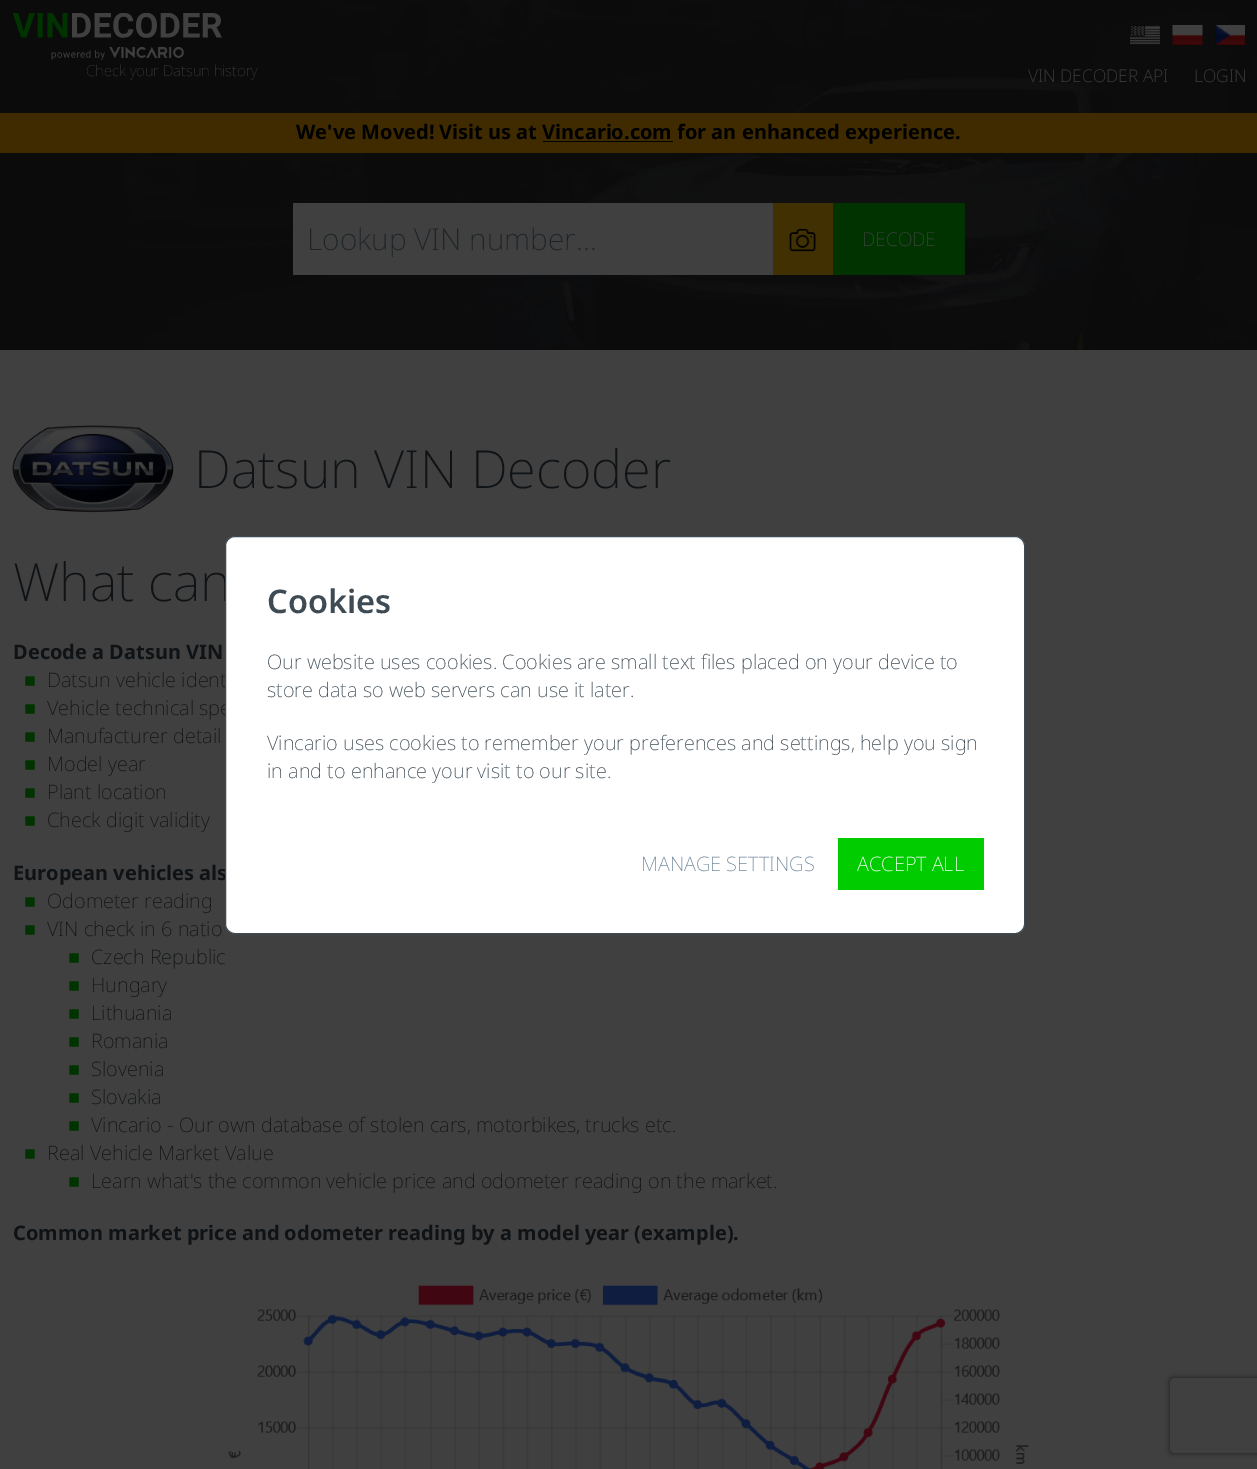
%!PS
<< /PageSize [1257 1469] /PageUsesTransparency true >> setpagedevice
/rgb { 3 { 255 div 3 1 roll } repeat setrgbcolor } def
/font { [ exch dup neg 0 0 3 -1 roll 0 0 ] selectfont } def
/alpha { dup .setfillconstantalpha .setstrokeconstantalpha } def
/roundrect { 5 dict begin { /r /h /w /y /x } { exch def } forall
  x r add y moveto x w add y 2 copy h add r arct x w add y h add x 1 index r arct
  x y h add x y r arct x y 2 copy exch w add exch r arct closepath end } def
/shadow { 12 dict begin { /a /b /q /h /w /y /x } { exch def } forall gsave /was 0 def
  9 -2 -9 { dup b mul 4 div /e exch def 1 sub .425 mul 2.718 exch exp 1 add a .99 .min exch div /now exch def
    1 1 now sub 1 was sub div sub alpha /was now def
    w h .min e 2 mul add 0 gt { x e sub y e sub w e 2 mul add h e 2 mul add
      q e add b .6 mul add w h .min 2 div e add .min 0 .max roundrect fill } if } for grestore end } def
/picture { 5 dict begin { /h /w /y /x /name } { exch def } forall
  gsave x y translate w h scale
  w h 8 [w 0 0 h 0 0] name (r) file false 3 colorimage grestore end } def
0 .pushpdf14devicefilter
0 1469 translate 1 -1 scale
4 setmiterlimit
64 64 64 rgb
0 0 1257 1469 rectfill
(img/1.rgb) 0 0 1257 350 picture
(img/2.rgb) 13 13 209 47 picture
(img/3.rgb) 1130 25 30 20 picture
(img/4.rgb) 1172 25 31 20 picture
(img/5.rgb) 1215 25 30 20 picture
[
  [0 113 1257 40 64 43 0]
  [543 141 130 1 0 0 0]
  [293 203 480 72 64 64 64]
  [773 203 60 72 64 48 2]
] { aload pop rgb rectfill } forall
(img/6.rgb) 789 228 27 24 picture
0 51 0 rgb
833 203 132 72 rectfill
(img/7.rgb) 12 425 162 88 picture
(img/8.rgb) 228 1285 801 184 picture
gsave
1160 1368 moveto 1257 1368 lineto 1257 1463 lineto 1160 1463 lineto closepath 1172.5 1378 moveto 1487.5 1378 lineto 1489 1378 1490 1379 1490 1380.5 curveto 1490 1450.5 lineto 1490 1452 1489 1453 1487.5 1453 curveto 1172.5 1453 lineto 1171 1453 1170 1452 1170 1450.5 curveto 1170 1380.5 lineto 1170 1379 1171 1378 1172.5 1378 curveto closepath eoclip newpath
32 32 32 rgb
1170 1378 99 75 2.5 3 1 shadow
grestore
/NotoSans-Thin 15 font
64 64 64 rgb
86 76 moveto (Check your Datsun history) show
/NotoSans-ExtraLight 17.5 font
1028 82 moveto (VIN DECODER API) show
1194 82 moveto (LOGIN) show
/NotoSans-Bold 20 font
0 0 0 rgb
296 139 moveto (We've Moved! Visit us at Vincario.com for an enhanced experience.) show
/NotoSans-ExtraLight 30 font
29 35 39 rgb
307 250 moveto (Lookup VIN number...) show
/NotoSans-ExtraLight 19 font
64 64 64 rgb
862 246 moveto (DECODE) show
/NotoSans-ExtraLight 52.5 font
16 19 21 rgb
194 488 moveto (Datsun VIN Decoder) show
13 601 moveto (What can) show
/NotoSans-Bold 20 font
13 659 moveto (Decode a Datsun VIN) show
/LiberationSans-Regular 20 font
0 51 0 rgb
24 687 moveto (■) show
/NotoSans-ExtraLight 20 font
16 19 21 rgb
47 687 moveto (Datsun vehicle ident) show
/LiberationSans-Regular 20 font
0 51 0 rgb
24 715 moveto (■) show
/NotoSans-ExtraLight 20 font
16 19 21 rgb
47 715 moveto (Vehicle technical spe) show
/LiberationSans-Regular 20 font
0 51 0 rgb
24 743 moveto (■) show
/NotoSans-ExtraLight 20 font
16 19 21 rgb
47 743 moveto (Manufacturer detail) show
/LiberationSans-Regular 20 font
0 51 0 rgb
24 771 moveto (■) show
/NotoSans-ExtraLight 20 font
16 19 21 rgb
47 771 moveto (Model year) show
/LiberationSans-Regular 20 font
0 51 0 rgb
24 799 moveto (■) show
/NotoSans-ExtraLight 20 font
16 19 21 rgb
47 799 moveto (Plant location) show
/LiberationSans-Regular 20 font
0 51 0 rgb
24 827 moveto (■) show
/NotoSans-ExtraLight 20 font
16 19 21 rgb
47 827 moveto (Check digit validity) show
/NotoSans-Bold 20 font
13 880 moveto (European vehicles als) show
/LiberationSans-Regular 20 font
0 51 0 rgb
24 908 moveto (■) show
/NotoSans-ExtraLight 20 font
16 19 21 rgb
47 908 moveto (Odometer reading) show
/LiberationSans-Regular 20 font
0 51 0 rgb
24 936 moveto (■) show
/NotoSans-ExtraLight 20 font
16 19 21 rgb
47 936 moveto (VIN check in 6 natio) show
/LiberationSans-Regular 20 font
0 51 0 rgb
68 964 moveto (■) show
/NotoSans-ExtraLight 20 font
16 19 21 rgb
91 964 moveto (Czech Republic) show
/LiberationSans-Regular 20 font
0 51 0 rgb
68 992 moveto (■) show
/NotoSans-ExtraLight 20 font
16 19 21 rgb
91 992 moveto (Hungary) show
/LiberationSans-Regular 20 font
0 51 0 rgb
68 1020 moveto (■) show
/NotoSans-ExtraLight 20 font
16 19 21 rgb
91 1020 moveto (Lithuania) show
/LiberationSans-Regular 20 font
0 51 0 rgb
68 1048 moveto (■) show
/NotoSans-ExtraLight 20 font
16 19 21 rgb
91 1048 moveto (Romania) show
/LiberationSans-Regular 20 font
0 51 0 rgb
68 1076 moveto (■) show
/NotoSans-ExtraLight 20 font
16 19 21 rgb
91 1076 moveto (Slovenia) show
/LiberationSans-Regular 20 font
0 51 0 rgb
68 1104 moveto (■) show
/NotoSans-ExtraLight 20 font
16 19 21 rgb
91 1104 moveto (Slovakia) show
/LiberationSans-Regular 20 font
0 51 0 rgb
68 1132 moveto (■) show
/NotoSans-ExtraLight 20 font
16 19 21 rgb
91 1132 moveto (Vincario - Our own database of stolen cars, motorbikes, trucks etc.) show
/LiberationSans-Regular 20 font
0 51 0 rgb
24 1160 moveto (■) show
/NotoSans-ExtraLight 20 font
16 19 21 rgb
47 1160 moveto (Real Vehicle Market Value) show
/LiberationSans-Regular 20 font
0 51 0 rgb
68 1188 moveto (■) show
/NotoSans-ExtraLight 20 font
16 19 21 rgb
91 1188 moveto (Learn what's the common vehicle price and odometer reading on the market.) show
/NotoSans-Bold 20 font
13 1240 moveto (Common market price and odometer reading by a model year \(example\).) show
255 255 255 rgb
225.5 536.5 799 397 9.5 roundrect gsave fill grestore
62 75 84 rgb
stroke
/NotoSans-SemiBold 32.5 font
267 613 moveto (Cookies) show
/NotoSans-ExtraLight 20 font
[
  [(Our website uses cookies. Cookies are small text files placed on your device to) 267 669]
  [(store data so web servers can use it later.) 267 697]
  [(Vincario uses cookies to remember your preferences and settings, help you sign) 267 750]
  [(in and to enhance your visit to our site.) 267 778]
] { aload pop moveto show } forall
115 138 156 rgb
641 871 moveto (MANAGE SETTINGS) show
0 204 0 rgb
838 838 146 52 rectfill
255 255 255 rgb
857 871 moveto (ACCEPT ALL) show
.poppdf14devicefilter showpage
